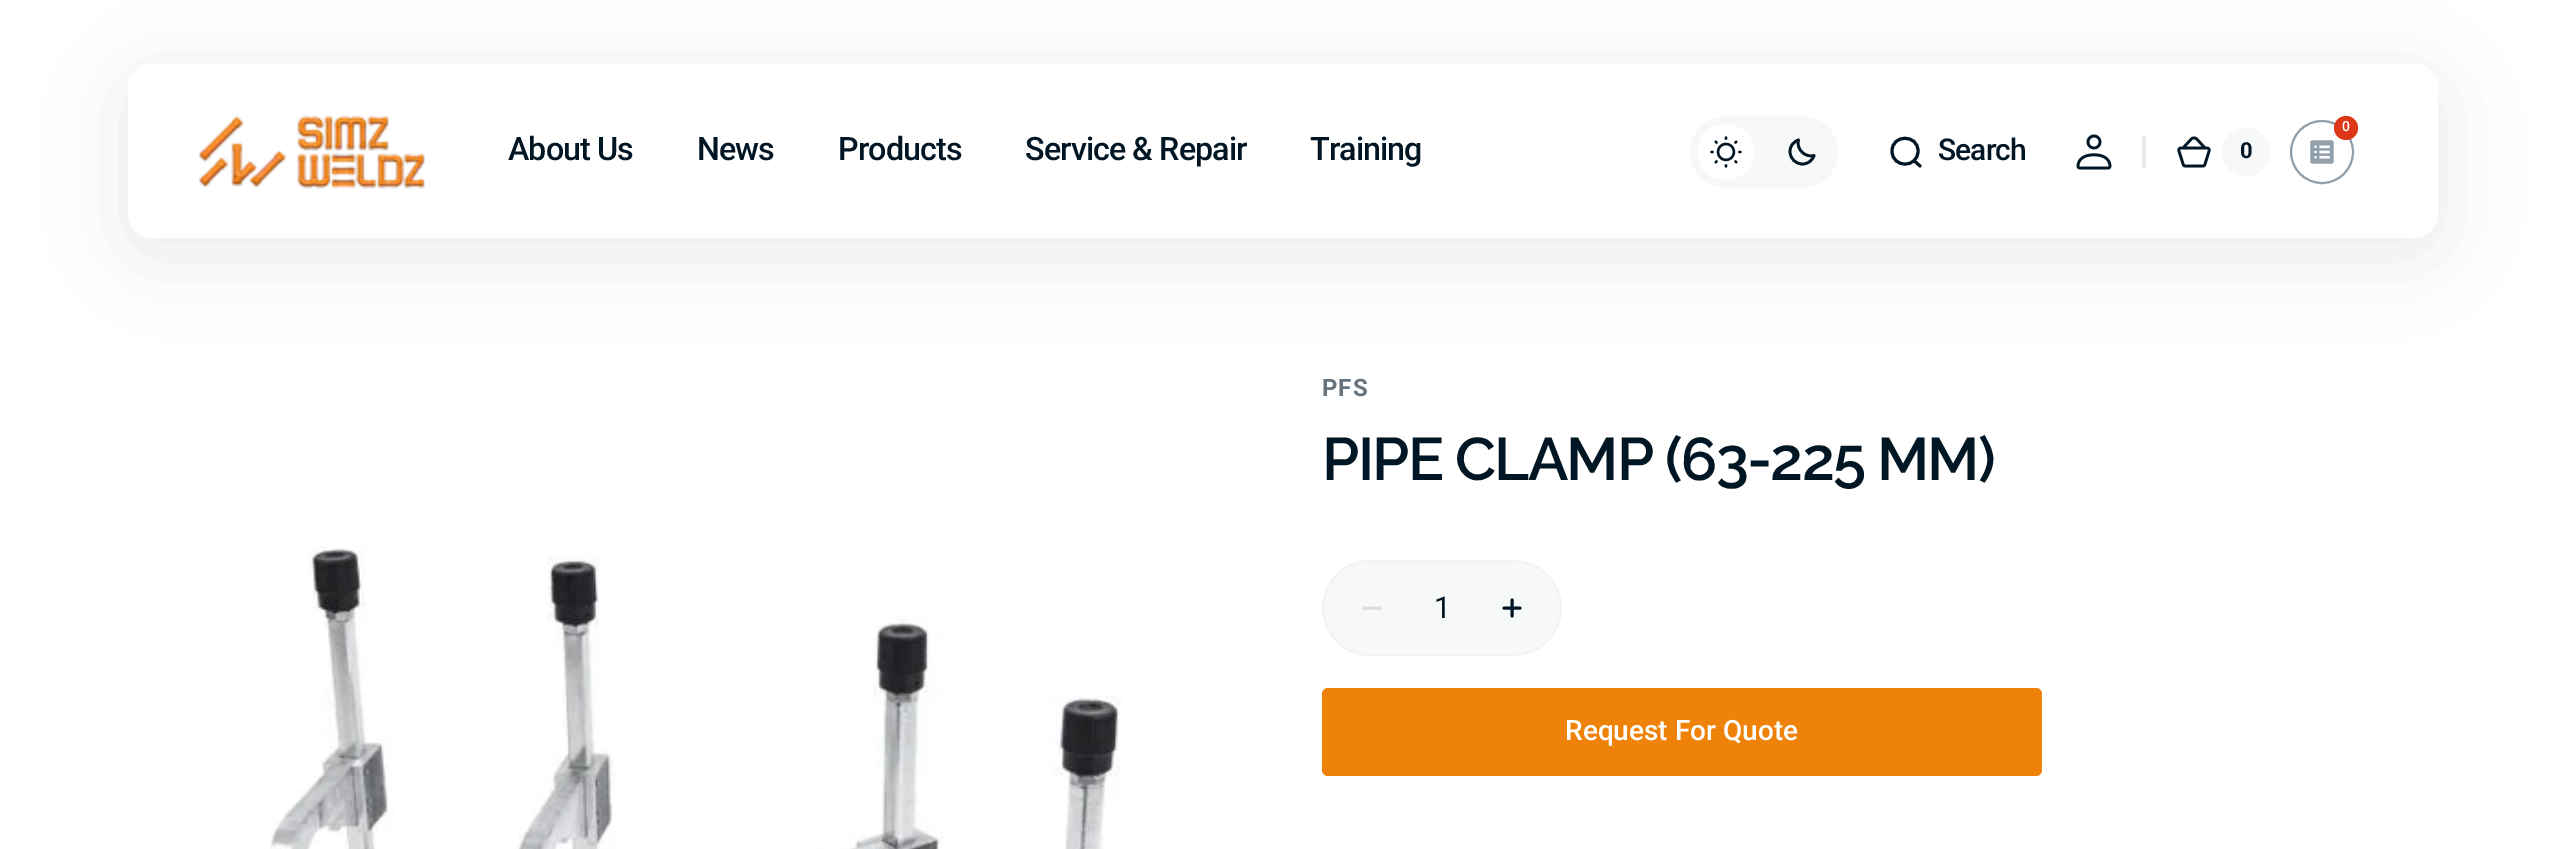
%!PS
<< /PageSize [2566 849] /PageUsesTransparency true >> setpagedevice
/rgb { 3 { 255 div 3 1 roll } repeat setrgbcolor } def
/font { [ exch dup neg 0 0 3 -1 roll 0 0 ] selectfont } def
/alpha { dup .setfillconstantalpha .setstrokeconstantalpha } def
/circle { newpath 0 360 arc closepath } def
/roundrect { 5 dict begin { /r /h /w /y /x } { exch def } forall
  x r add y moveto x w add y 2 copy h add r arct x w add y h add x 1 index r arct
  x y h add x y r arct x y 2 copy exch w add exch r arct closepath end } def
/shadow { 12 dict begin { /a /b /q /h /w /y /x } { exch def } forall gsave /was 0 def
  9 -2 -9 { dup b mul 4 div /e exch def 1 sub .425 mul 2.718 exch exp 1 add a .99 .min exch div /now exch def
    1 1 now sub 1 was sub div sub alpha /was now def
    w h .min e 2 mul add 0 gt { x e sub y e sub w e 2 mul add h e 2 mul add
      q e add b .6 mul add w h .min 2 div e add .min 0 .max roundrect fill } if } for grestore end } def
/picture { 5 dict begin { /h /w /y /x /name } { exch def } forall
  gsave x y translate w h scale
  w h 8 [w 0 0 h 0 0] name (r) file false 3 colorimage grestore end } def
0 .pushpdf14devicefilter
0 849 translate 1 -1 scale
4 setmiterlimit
255 255 255 rgb
0 0 2566 849 rectfill
1 22 36 rgb
128 80 2310 174 24 40 0.08 shadow
255 255 255 rgb
128 64 2310 174 24 roundrect fill
(img/1.rgb) 198 115 227 74 picture
247 248 248 rgb
1690 116 148 72 36 roundrect fill
255 255 255 rgb
1726 152 28 circle fill
(img/2.rgb) 1710 136 32 32 picture
1 22 36 rgb
2.7 setlinewidth
1 setlinejoin
1814 155.5 moveto 1805 158 1796 149 1798.5 140 curveto 1793.5 141.5 1790 146 1790 151.5 curveto 1790 158.5 1795.5 164 1802.5 164 curveto 1808 164 1812.5 160.5 1814 155.5 curveto closepath stroke
3 setlinewidth
1 setlinecap
0 setlinejoin
1914 160.5 moveto 1920 166 lineto 1918 151 moveto 1918 168.5 1892 168.5 1892 151 curveto 1892 134 1918 134 1918 151 curveto closepath stroke
(img/3.rgb) 2076 134 36 36 picture
145 159 171 rgb
2 setlinewidth
0 setlinecap
2322 152 31 circle stroke
222 54 25 rgb
2346 128 12 circle fill
(img/4.rgb) 2310 140 24 24 picture
230 232 233 rgb
2142 136 4 32 2 roundrect fill
(img/5.rgb) 2177 136 34 32 picture
247 248 248 rgb
2246 152 24 circle fill
(img/6.rgb) 270 546 852 303 picture
1323 561 238 94 47 roundrect gsave fill grestore
242 243 244 rgb
stroke
218 221 223 rgb
3 setlinewidth
1 setlinecap
1380 608 moveto 1364 608 lineto stroke
1 22 36 rgb
1512 600 moveto 1512 616 lineto 1520 608 moveto 1504 608 lineto stroke
239 131 9 rgb
1322 688 720 88 6 roundrect fill
/Roboto-Medium 32.25 font
1 22 36 rgb
508 160 moveto -0.9 0 (About Us) ashow
697 160 moveto -0.9 0 (News) ashow
838 160 moveto -0.9 0 (Products) ashow
1025 160 moveto -0.9 0 (Service & Repair) ashow
1310 160 moveto -0.9 0 (Training) ashow
/Roboto-Medium 30 font
1938 160 moveto -0.9 0 (Search) ashow
/Roboto-Medium 14 font
255 255 255 rgb
2342 131 moveto -0.9 0 (0) ashow
/Roboto-Bold 22 font
1 22 36 rgb
2240 158 moveto -0.9 0 (0) ashow
/Roboto-Bold 24 font
103 115 124 rgb
1322 396 moveto 1 0 (PFS) ashow
/Raleway-SemiBold 60 font
1 22 36 rgb
1322 480 moveto -1.8 0 (PIPE CLAMP \(63-225 MM\)) ashow
/Roboto-Regular 30 font
1434 618 moveto (1) show
/Roboto-Medium 28 font
255 255 255 rgb
1565 740 moveto (Request For Quote) show
.poppdf14devicefilter showpage
